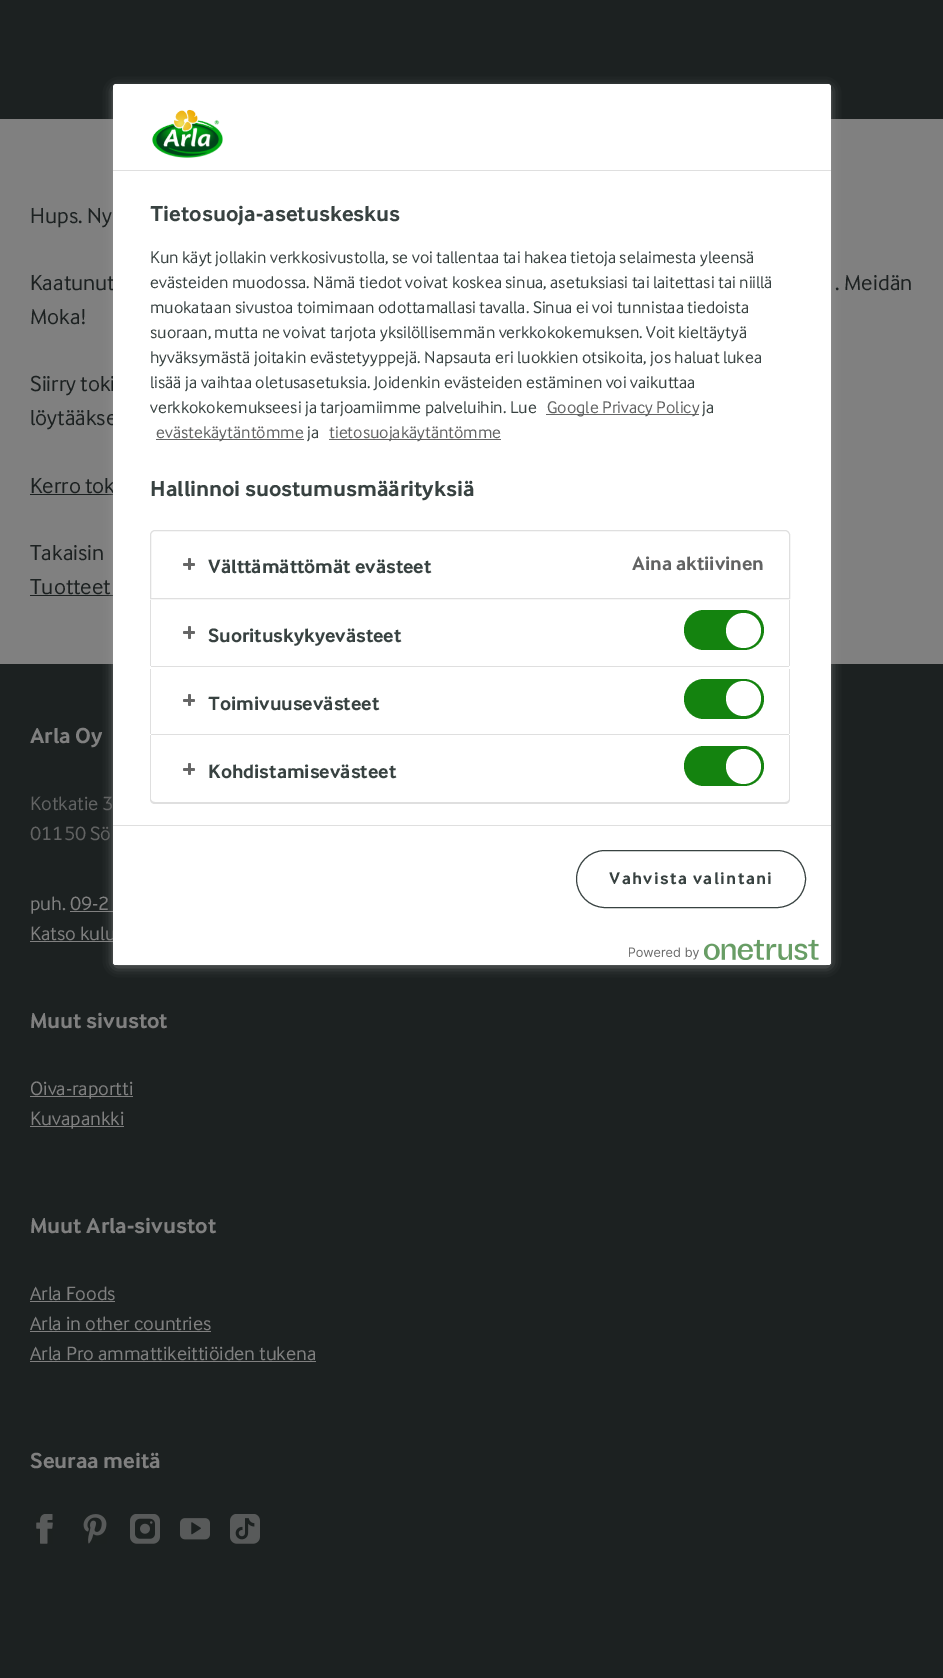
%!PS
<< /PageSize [943 1678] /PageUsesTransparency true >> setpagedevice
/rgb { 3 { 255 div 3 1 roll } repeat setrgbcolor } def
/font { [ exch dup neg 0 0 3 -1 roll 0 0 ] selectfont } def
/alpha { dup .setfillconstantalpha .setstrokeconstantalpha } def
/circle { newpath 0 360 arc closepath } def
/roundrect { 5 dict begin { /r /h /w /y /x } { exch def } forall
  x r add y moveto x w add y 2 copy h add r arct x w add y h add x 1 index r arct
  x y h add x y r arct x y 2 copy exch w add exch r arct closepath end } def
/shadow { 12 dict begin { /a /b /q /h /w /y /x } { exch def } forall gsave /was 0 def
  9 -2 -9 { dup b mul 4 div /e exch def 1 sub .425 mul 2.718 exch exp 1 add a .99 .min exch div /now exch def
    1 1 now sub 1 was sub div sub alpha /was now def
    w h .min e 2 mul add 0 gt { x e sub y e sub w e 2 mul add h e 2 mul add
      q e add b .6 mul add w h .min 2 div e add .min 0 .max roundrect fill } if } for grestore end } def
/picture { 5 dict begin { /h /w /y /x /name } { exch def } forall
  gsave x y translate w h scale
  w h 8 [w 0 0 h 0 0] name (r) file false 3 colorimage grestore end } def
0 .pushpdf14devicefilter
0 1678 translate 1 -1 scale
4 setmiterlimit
128 128 128 rgb
0 0 943 1678 rectfill
[
  [0 0 943 119 28 33 33]
  [30 494 83 1 28 33 33]
  [30 595 85 1 28 33 33]
  [0 664 943 1014 28 33 33]
  [70 911 43 1 128 128 128]
  [30 941 83 1 128 128 128]
] { aload pop rgb rectfill } forall
153 153 153 rgb
116 90 712 874 0 6 1 shadow
[
  [30 1096 103 1 128 128 128]
  [30 1126 94 1 128 128 128]
  [30 1301 85 1 128 128 128]
  [30 1331 181 1 128 128 128]
  [30 1361 286 1 128 128 128]
] { aload pop rgb rectfill } forall
(img/3.rgb) 36 1514 17 30 picture
(img/4.rgb) 83 1514 24 30 picture
(img/5.rgb) 130 1514 30 30 picture
(img/6.rgb) 180 1518 30 22 picture
(img/7.rgb) 230 1514 30 30 picture
/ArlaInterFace-Regular 22.5 font
28 33 33 rgb
[
  [(Hups. Ny) 30 223]
  [(Kaatunut) 30 290]
  [(. Meidän) 835 290]
  [(Moka!) 30 324]
  [(Siirry toki) 30 391]
  [(löytääkse) 30 425]
  [(Kerro tok) 30 493]
  [(Takaisin) 30 560]
  [(Tuotteet) 30 594]
] { aload pop moveto show } forall
/ArlaInterFace-Bold 22.5 font
128 128 128 rgb
30 743 moveto (Arla Oy) show
/ArlaInterFace-Regular 20 font
98 99 99 rgb
30 810 moveto (Kotkatie 3) show
30 840 moveto (01150 Sö) show
128 128 128 rgb
30 910 moveto (puh. 09-2) show
30 940 moveto (Katso kulu) show
255 255 255 rgb
113 84 718 881 3 roundrect fill
223 223 223 rgb
150 735 moveto 790 735 lineto 790 799 lineto 790 802 788 804 785 804 curveto 155 804 lineto 152 804 150 802 150 799 curveto closepath 151 735 moveto 789 735 lineto 789 799 lineto 789 801 787 802 785 802 curveto 155 802 lineto 153 802 151 801 151 799 curveto closepath eofill
20 131 15 rgb
684 746 80 40 20 roundrect fill
255 255 255 rgb
743.5 766.5 17.5 circle fill
20 131 15 rgb
684 679 80 40 20 roundrect fill
255 255 255 rgb
743.5 698.5 17.5 circle fill
20 131 15 rgb
684 610 80 40 20 roundrect fill
255 255 255 rgb
743.5 630.5 17.5 circle fill
113 928 moveto 831 928 lineto 831 962 lineto 831 963.5 829.5 965 828 965 curveto 116 965 lineto 114.5 965 113 963.5 113 962 curveto closepath fill
(img/2.rgb) 629 939 190 21 picture
56 66 65 rgb
576.5 850.5 229 57 28.5 roundrect stroke
/ArlaInterFace-Bold 17.5 font
609 884 moveto 1.4 0 (Vahvista valintani) ashow
223 223 223 rgb
113 825 718 1 rectfill
102 102 102 rgb
188 763 3 12 1.5 roundrect fill
183 768 12 3 1.5 roundrect fill
/ArlaInterFace-Bold 20 font
56 66 65 rgb
208 778 moveto (Kohdistamisevästeet) show
102 102 102 rgb
188 694 3 12 1.5 roundrect fill
183 699 12 3 1.5 roundrect fill
56 66 65 rgb
208 710 moveto (Toimivuusevästeet) show
[
  [150 669 1 65 223 223 223]
  [151 734 638 1 223 223 223]
  [789 669 1 65 223 223 223]
] { aload pop rgb rectfill } forall
102 102 102 rgb
188 626 3 13 1.5 roundrect fill
183 631 12 3 1.5 roundrect fill
56 66 65 rgb
208 642 moveto (Suorituskykyevästeet) show
[
  [150 600 1 66 223 223 223]
  [151 666 638 1 223 223 223]
  [789 600 1 66 223 223 223]
] { aload pop rgb rectfill } forall
155 530.5 moveto 785 530.5 lineto 787.5 530.5 789.5 532.5 789.5 535 curveto 789.5 598.5 lineto 150.5 598.5 lineto 150.5 535 lineto 150.5 532.5 152.5 530.5 155 530.5 curveto closepath stroke
98 99 99 rgb
632 570 moveto (Aina aktiivinen) show
102 102 102 rgb
188 558 3 12 1.5 roundrect fill
183 563 12 3 1.5 roundrect fill
56 66 65 rgb
208 573 moveto (Välttämättömät evästeet) show
/ArlaInterFace-Bold 22.5 font
150 496 moveto (Hallinnoi suostumusmäärityksiä) show
101 101 101 rgb
329 439 172 1 rectfill
/ArlaInterFace-Regular 17.5 font
98 99 99 rgb
329 438 moveto (tietosuojakäytäntömme) show
56 66 65 rgb
307 438 moveto (ja) show
101 101 101 rgb
156 439 148 1 rectfill
98 99 99 rgb
156 438 moveto (evästekäytäntömme) show
56 66 65 rgb
702 413 moveto (ja) show
101 101 101 rgb
546 414 153 1 rectfill
98 99 99 rgb
547 413 moveto (Google Privacy Policy) show
56 66 65 rgb
[
  [(verkkokokemukseesi ja tarjoamiimme palveluihin. Lue) 150 413]
  [(lisää ja vaihtaa oletusasetuksia. Joidenkin evästeiden estäminen voi vaikuttaa) 150 388]
  [(hyväksymästä joitakin evästetyyppejä. Napsauta eri luokkien otsikoita, jos haluat lukea) 150 363]
  [(suoraan, mutta ne voivat tarjota yksilöllisemmän verkkokokemuksen. Voit kieltäytyä) 150 338]
  [(muokataan sivustoa toimimaan odottamallasi tavalla. Sinua ei voi tunnistaa tiedoista) 150 313]
  [(evästeiden muodossa. Nämä tiedot voivat koskea sinua, asetuksiasi tai laitettasi tai niillä) 150 288]
  [(Kun käyt jollakin verkkosivustolla, se voi tallentaa tai hakea tietoja selaimesta yleensä) 150 263]
] { aload pop moveto show } forall
/ArlaInterFace-Bold 22.5 font
150 221 moveto (Tietosuoja-asetuskeskus) show
(img/1.rgb) 152 109 71 49 picture
223 223 223 rgb
113 170 718 1 rectfill
128 128 128 rgb
30 1028 moveto (Muut sivustot) show
/ArlaInterFace-Regular 20 font
30 1095 moveto (Oiva-raportti) show
30 1125 moveto (Kuvapankki) show
/ArlaInterFace-Bold 22.5 font
30 1233 moveto (Muut Arla-sivustot) show
/ArlaInterFace-Regular 20 font
[
  [(Arla Foods) 30 1300]
  [(Arla in other countries) 30 1330]
  [(Arla Pro ammattikeittiöiden tukena) 30 1360]
] { aload pop moveto show } forall
/ArlaInterFace-Bold 22.5 font
30 1468 moveto (Seuraa meitä) show
.poppdf14devicefilter showpage
